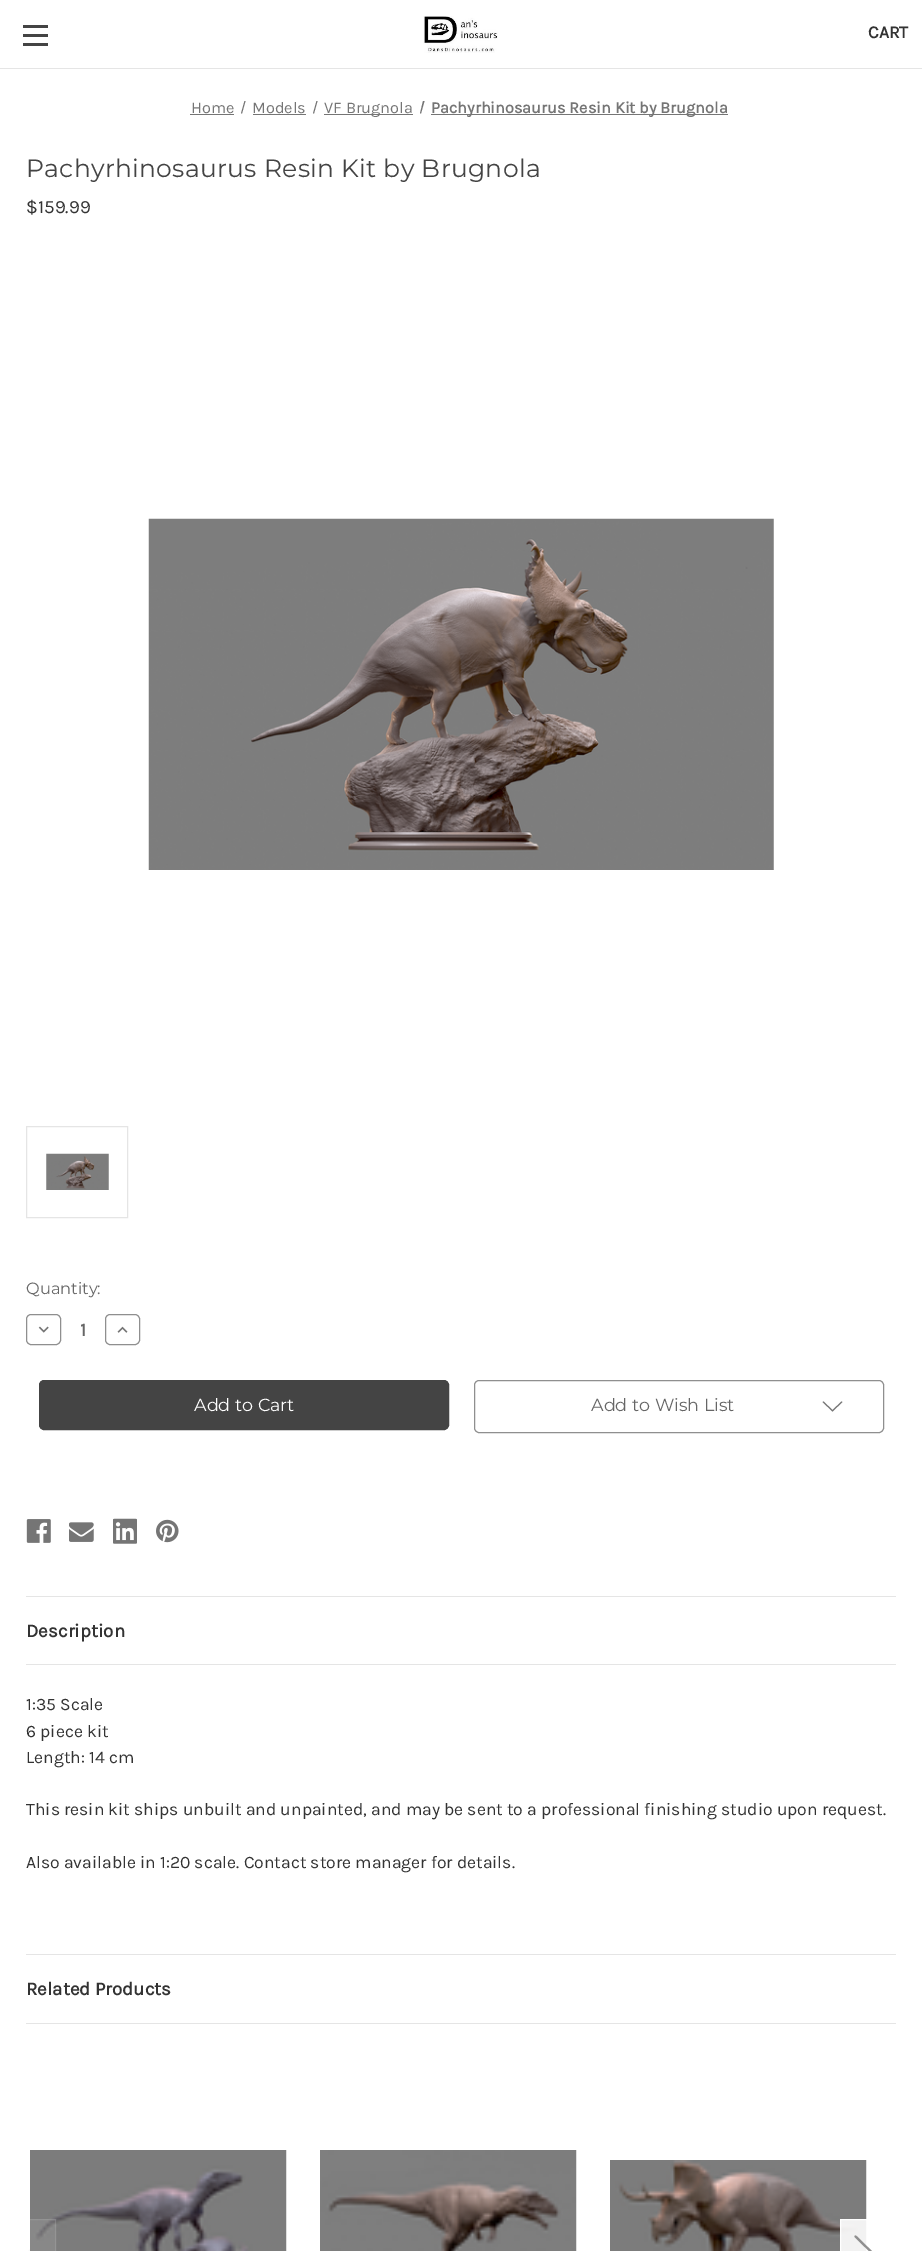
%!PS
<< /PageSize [922 2251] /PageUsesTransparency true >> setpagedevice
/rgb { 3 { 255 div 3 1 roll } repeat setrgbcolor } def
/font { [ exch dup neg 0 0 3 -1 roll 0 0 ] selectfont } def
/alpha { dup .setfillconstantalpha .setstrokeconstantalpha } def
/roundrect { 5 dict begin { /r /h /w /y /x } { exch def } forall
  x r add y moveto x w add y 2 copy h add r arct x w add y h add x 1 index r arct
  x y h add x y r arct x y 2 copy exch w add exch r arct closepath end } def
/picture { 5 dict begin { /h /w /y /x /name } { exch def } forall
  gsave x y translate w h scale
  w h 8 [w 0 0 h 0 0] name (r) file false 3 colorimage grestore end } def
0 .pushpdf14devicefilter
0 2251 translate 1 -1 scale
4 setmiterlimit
255 255 255 rgb
0 0 922 2251 rectfill
[
  [0 68 922 1 229 229 229]
  [23 34 25 3 68 68 68]
  [23 25 25 3 68 68 68]
  [23 43 25 3 68 68 68]
] { aload pop rgb rectfill } forall
(img/1.rgb) 423 16 75 37 picture
117 117 117 rgb
190 114 44 1 rectfill
244.5 101 moveto 245.5 101 lineto 242 113.5 lineto 241 113.5 lineto closepath fill
253 114 53 1 rectfill
316.5 101 moveto 317.5 101 lineto 314 113.5 lineto 313 113.5 lineto closepath fill
324 114 89 1 rectfill
423 101 moveto 424.5 101 lineto 421 113.5 lineto 420 113.5 lineto closepath fill
431 114 297 1 rectfill
(img/2.rgb) 148 518 626 352 picture
229 229 229 rgb
26.5 1126.5 101 91 rectstroke
(img/3.rgb) 46 1153 63 37 picture
143 143 143 rgb
26.5 1314.5 34 30 4.5 roundrect stroke
(img/4.rgb) 38 1326 11 7 picture
105.5 1314.5 34 30 4.5 roundrect stroke
(img/5.rgb) 117 1326 11 7 picture
68 68 68 rgb
39.5 1380.5 409 49 4.5 roundrect gsave fill grestore
stroke
143 143 143 rgb
474.5 1380.5 409 52 4.5 roundrect stroke
117 117 117 rgb
832.5 1410 moveto 841.5 1401.5 lineto 842.5 1402 lineto 832.5 1411.5 lineto 822.5 1402 lineto 823.5 1401.5 lineto closepath eofill
(img/6.rgb) 26 1519 25 24 picture
(img/7.rgb) 69 1522 25 20 picture
(img/8.rgb) 113 1518 24 26 picture
(img/9.rgb) 156 1519 23 24 picture
[
  [26 1664 870 1 229 229 229]
  [26 1596 870 1 229 229 229]
  [26 2023 870 1 229 229 229]
  [26 1954 870 1 229 229 229]
] { aload pop rgb rectfill } forall
(img/10.rgb) 30 2150 257 101 picture
(img/11.rgb) 320 2150 257 101 picture
(img/12.rgb) 610 2160 257 91 picture
0.09 alpha
255 255 255 rgb
30 2219 26 32 rectfill
0.1 alpha
8.5 2219.5 47 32 rectstroke
0.06 alpha
143 143 143 rgb
2.1 setlinewidth
1 setlinecap
1 setlinejoin
44.5 2236.5 moveto 23 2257.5 lineto 44.5 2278.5 lineto stroke
0.9 alpha
255 255 255 rgb
841 2220 26 31 rectfill
1 alpha
1 setlinewidth
0 setlinecap
0 setlinejoin
840.5 2219.5 49 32 rectstroke
143 143 143 rgb
2.1 setlinewidth
1 setlinecap
1 setlinejoin
855.5 2236.5 moveto 877 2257.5 lineto 855.5 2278.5 lineto stroke
/Karla-Bold 17.5 font
51 51 51 rgb
868 38 moveto (CART) show
/Karla-Regular 16.25 font
117 117 117 rgb
[
  [(Home) 191 113]
  [(Models) 252 113]
  [(VF Brugnola) 324 113]
] { aload pop moveto show } forall
/Karla-Bold 16.25 font
431 113 moveto (Pachyrhinosaurus Resin Kit by Brugnola) show
/Montserrat-Regular 25 font
68 68 68 rgb
26 177 moveto 0.3 0 (Pachyrhinosaurus Resin Kit by Brugnola) ashow
/Karla-Regular 18.75 font
51 51 51 rgb
26 213 moveto ($159.99) show
/Montserrat-Regular 16.25 font
102 102 102 rgb
26 1294 moveto (Quantity:) show
/Karla-Bold 18.75 font
80 1336 moveto (1) show
/Montserrat-Regular 17.5 font
255 255 255 rgb
194 1411 moveto (Add to Cart) show
102 102 102 rgb
591 1411 moveto (Add to Wish List) show
/Karla-Bold 18.75 font
51 51 51 rgb
26 1637 moveto (Description) show
/Karla-Regular 17.5 font
[
  [(1:35 Scale) 26 1710]
  [(6 piece kit) 26 1737]
  [(Length: 14 cm) 26 1763]
  [(This resin kit ships unbuilt and unpainted, and may be sent to a professional finishing studio upon request.) 26 1815]
  [(Also available in 1:20 scale. Contact store manager for details.) 26 1868]
] { aload pop moveto show } forall
/Karla-Bold 18.75 font
26 1995 moveto (Related Products) show
.poppdf14devicefilter showpage
